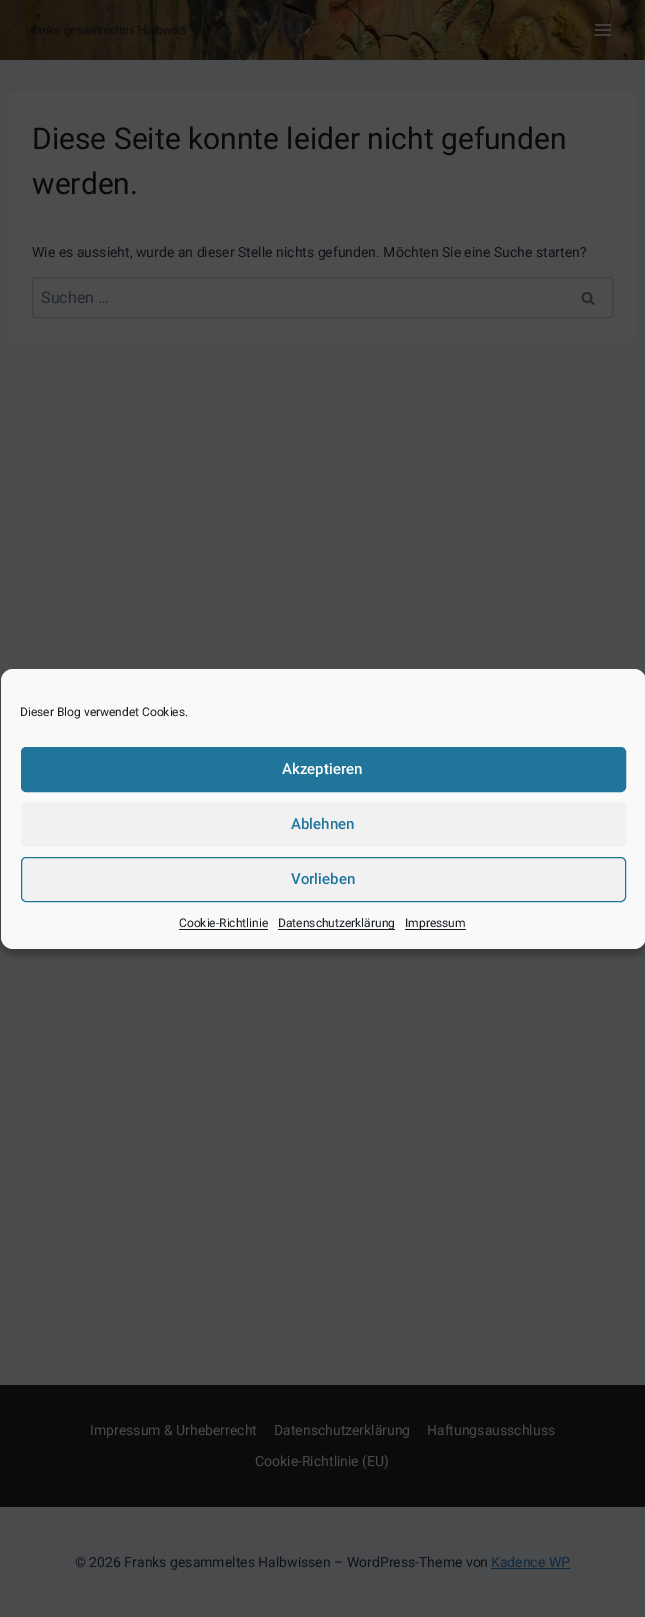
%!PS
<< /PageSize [645 1617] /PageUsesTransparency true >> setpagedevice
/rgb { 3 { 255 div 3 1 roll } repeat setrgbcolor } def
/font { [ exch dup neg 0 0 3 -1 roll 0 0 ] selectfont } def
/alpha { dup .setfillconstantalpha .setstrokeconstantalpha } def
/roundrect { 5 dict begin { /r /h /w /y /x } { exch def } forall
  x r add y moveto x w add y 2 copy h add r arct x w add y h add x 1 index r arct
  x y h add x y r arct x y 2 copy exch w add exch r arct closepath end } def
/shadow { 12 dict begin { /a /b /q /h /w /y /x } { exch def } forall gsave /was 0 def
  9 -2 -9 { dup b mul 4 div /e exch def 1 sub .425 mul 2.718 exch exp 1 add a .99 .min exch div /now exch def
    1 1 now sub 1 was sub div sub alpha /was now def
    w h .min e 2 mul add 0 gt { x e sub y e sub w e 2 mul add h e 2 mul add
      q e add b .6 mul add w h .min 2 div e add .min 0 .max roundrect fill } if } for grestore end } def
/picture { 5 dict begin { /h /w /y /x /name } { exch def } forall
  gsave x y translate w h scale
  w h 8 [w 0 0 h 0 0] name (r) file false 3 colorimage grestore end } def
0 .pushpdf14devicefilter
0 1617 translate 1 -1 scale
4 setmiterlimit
74 75 76 rgb
0 0 645 1617 rectfill
(img/1.rgb) 0 0 645 60 picture
(img/2.rgb) 594 24 18 12 picture
77 77 77 rgb
8 92 629 250 4 roundrect fill
61 64 67 rgb
32.5 277.5 580 40 2.5 roundrect stroke
(img/3.rgb) 581 292 14 13 picture
11 11 11 rgb
0 1385 645 122 rectfill
15 39 62 rgb
491 1568 79 1 rectfill
gsave
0 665 moveto 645 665 lineto 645 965 lineto 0 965 lineto closepath 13 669 moveto 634 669 lineto 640.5 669 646 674.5 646 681 curveto 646 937 lineto 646 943.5 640.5 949 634 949 curveto 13 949 lineto 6.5 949 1 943.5 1 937 curveto 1 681 lineto 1 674.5 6.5 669 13 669 curveto closepath eoclip newpath
0 0 0 rgb
1 675 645 280 12 3 0.23 shadow
grestore
249 249 249 rgb
1 669 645 280 12 roundrect fill
33 117 155 rgb
21.5 747.5 604 44 4.5 roundrect gsave fill grestore
stroke
241 241 241 rgb
21 802 605 45 5 roundrect fill
21.5 857.5 604 44 4.5 roundrect gsave fill grestore
33 117 155 rgb
stroke
[
  [179 929 89 1 25 30 35]
  [278 929 117 1 25 30 35]
  [405 929 61 1 25 30 35]
] { aload pop rgb rectfill } forall
/LiberationSans-Regular 12 font
8 10 13 rgb
35 34 moveto (anks gesammeltes Halbwiss) show
/Roboto-Regular 30 font
32 149 moveto (Diese Seite konnte leider nicht gefunden) show
32 194 moveto (werden.) show
/Roboto-Regular 14 font
14 17 22 rgb
32 257 moveto (Wie es aussieht, wurde an dieser Stelle nichts gefunden. Möchten Sie eine Suche starten?) show
/Roboto-Regular 16 font
34 38 45 rgb
41 303 moveto (Suchen …) show
/Roboto-Regular 14 font
74 75 76 rgb
[
  [(Impressum & Urheberrecht) 90 1435]
  [(Datenschutzerklärung) 274 1435]
  [(Haftungsausschluss) 427 1435]
  [(Cookie-Richtlinie \(EU\)) 255 1466]
] { aload pop moveto show } forall
14 17 22 rgb
75 1567 moveto (© 2026 Franks gesammeltes Halbwissen – WordPress-Theme von) show
15 39 62 rgb
491 1567 moveto (Kadence WP) show
/Roboto-Regular 12 font
25 30 35 rgb
20 716 moveto (Dieser Blog verwendet Cookies.) show
/Roboto-Medium 15 font
255 255 255 rgb
282 774 moveto (Akzeptieren) show
33 117 155 rgb
291 829 moveto (Ablehnen) show
291 884 moveto (Vorlieben) show
/Roboto-Regular 12 font
25 30 35 rgb
[
  [(Cookie-Richtlinie) 179 927]
  [(Datenschutzerklärung) 278 927]
  [(Impressum) 405 927]
] { aload pop moveto show } forall
.poppdf14devicefilter showpage
